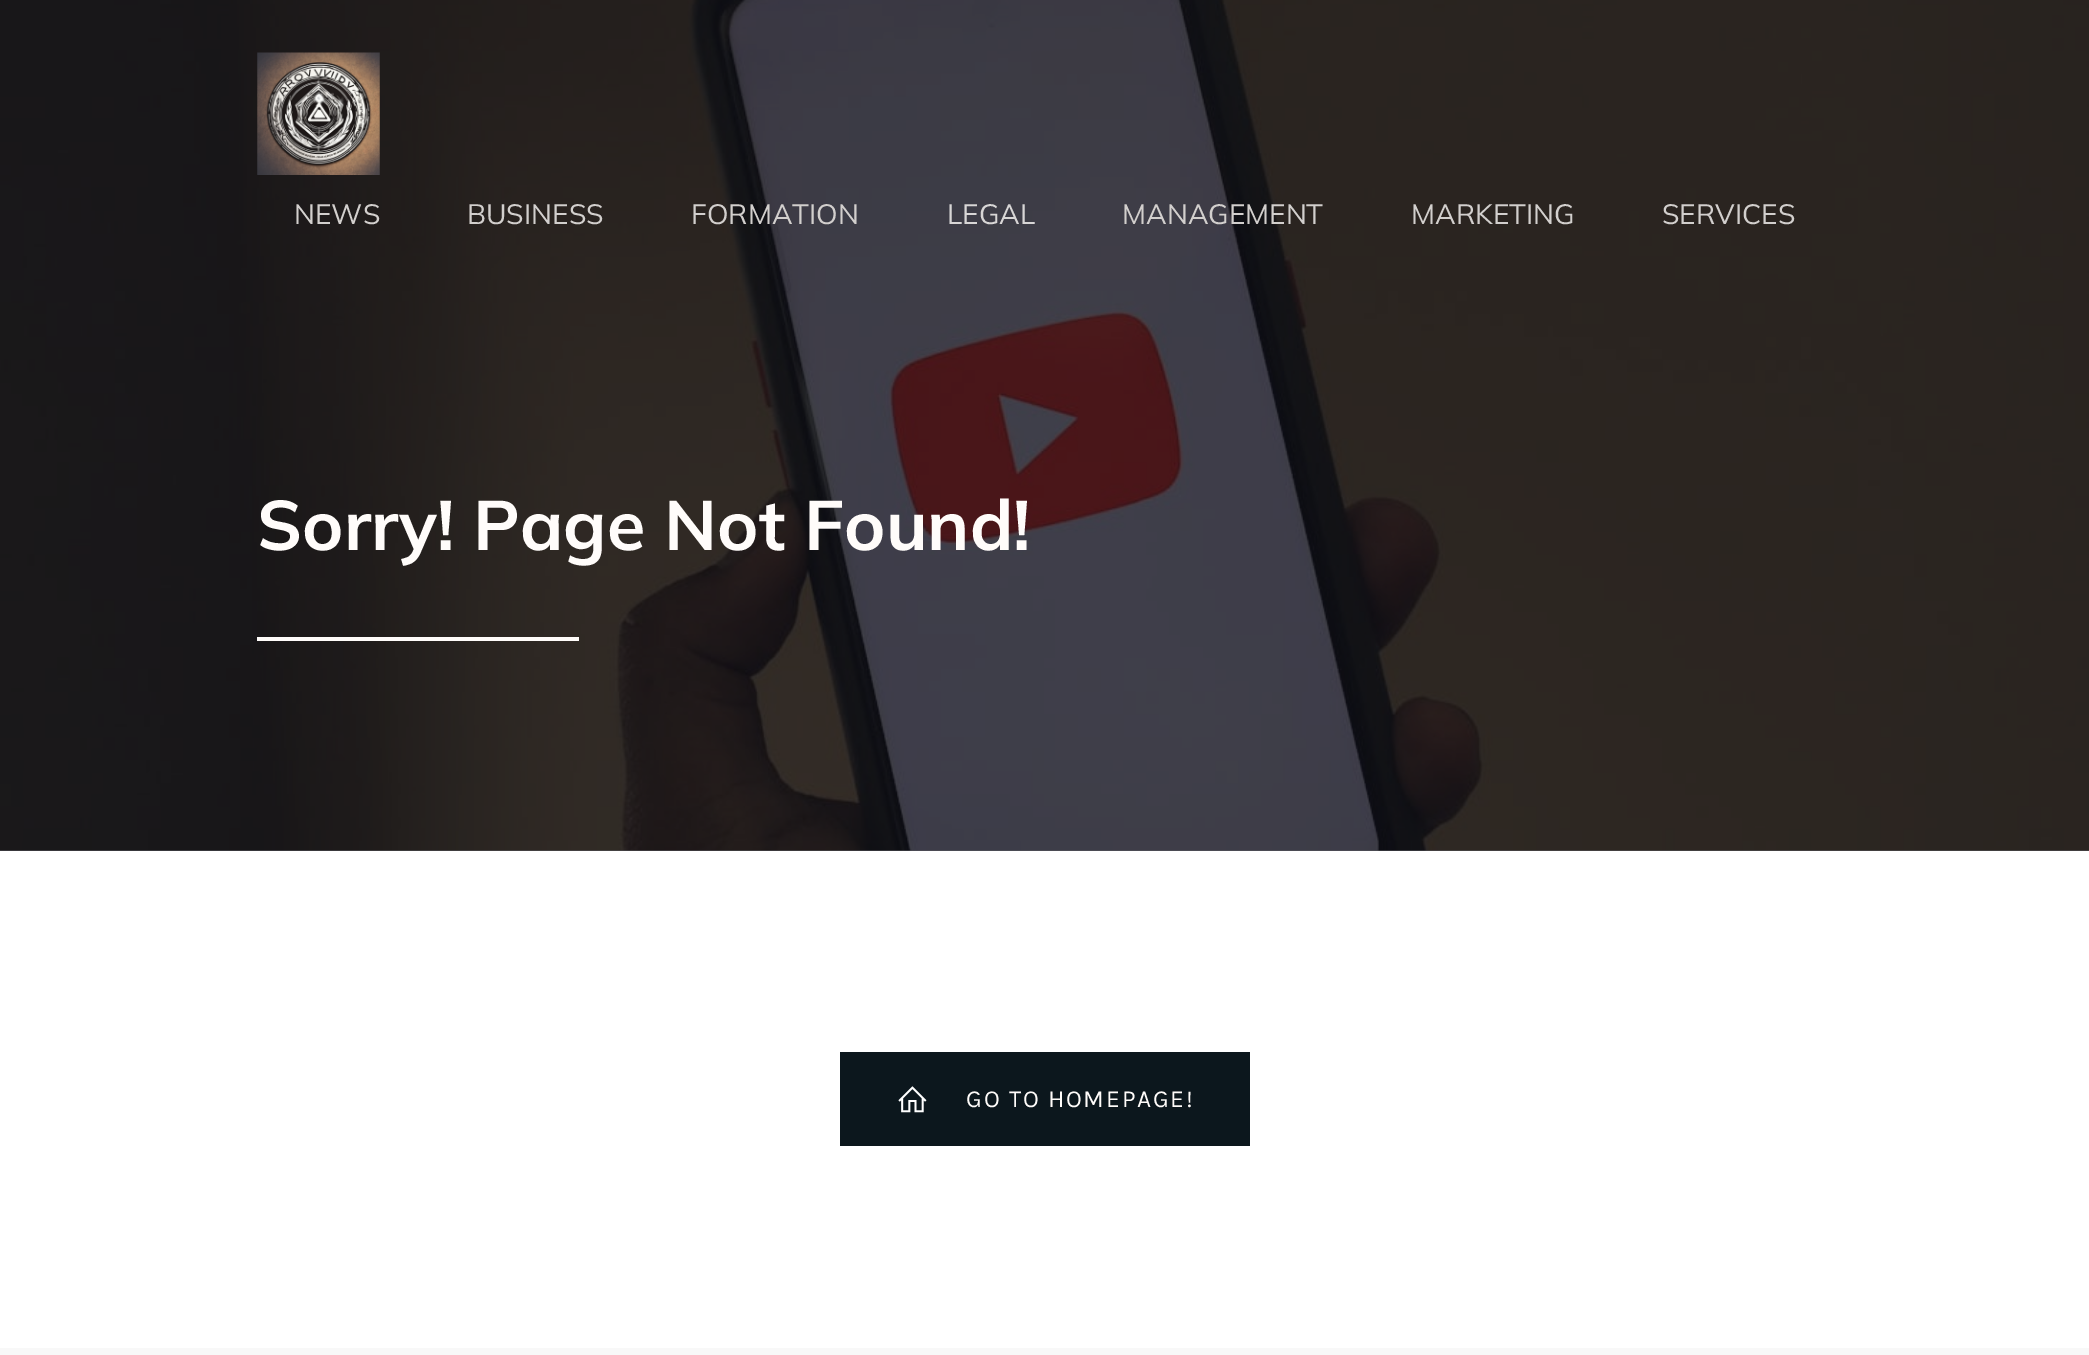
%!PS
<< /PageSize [2089 1355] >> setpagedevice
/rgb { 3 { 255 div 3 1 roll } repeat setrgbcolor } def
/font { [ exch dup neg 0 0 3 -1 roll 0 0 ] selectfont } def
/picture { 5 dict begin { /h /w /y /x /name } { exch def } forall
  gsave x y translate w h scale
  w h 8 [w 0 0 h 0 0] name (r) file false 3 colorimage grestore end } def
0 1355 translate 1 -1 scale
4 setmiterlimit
255 255 255 rgb
0 0 2089 1355 rectfill
88 89 95 rgb
0 850 2089 1 rectfill
(img/2.rgb) 0 0 2089 851 picture
(img/1.rgb) 257 52 123 123 picture
255 252 250 rgb
257 637 322 4 rectfill
12 23 29 rgb
840 1052 410 94 rectfill
(img/3.rgb) 898 1086 29 27 picture
248 248 248 rgb
0 1348 2089 7 rectfill
/Mulish-Regular 28 font
210 207 205 rgb
[
  [(NEWS) 294 224]
  [(BUSINESS) 467 224]
  [(FORMATION) 691 224]
] { aload pop moveto show } forall
216 214 214 rgb
947 224 moveto (LEGAL) show
210 207 205 rgb
[
  [(MANAGEMENT) 1122 224]
  [(MARKETING) 1411 224]
  [(SERVICES) 1662 224]
] { aload pop moveto show } forall
/Mulish-Bold 70 font
255 252 250 rgb
257 550 moveto (Sorry! Page Not Found!) show
/Karla-Regular 24.5 font
966 1107 moveto 1.75 0 (GO TO HOMEPAGE!) ashow
showpage
